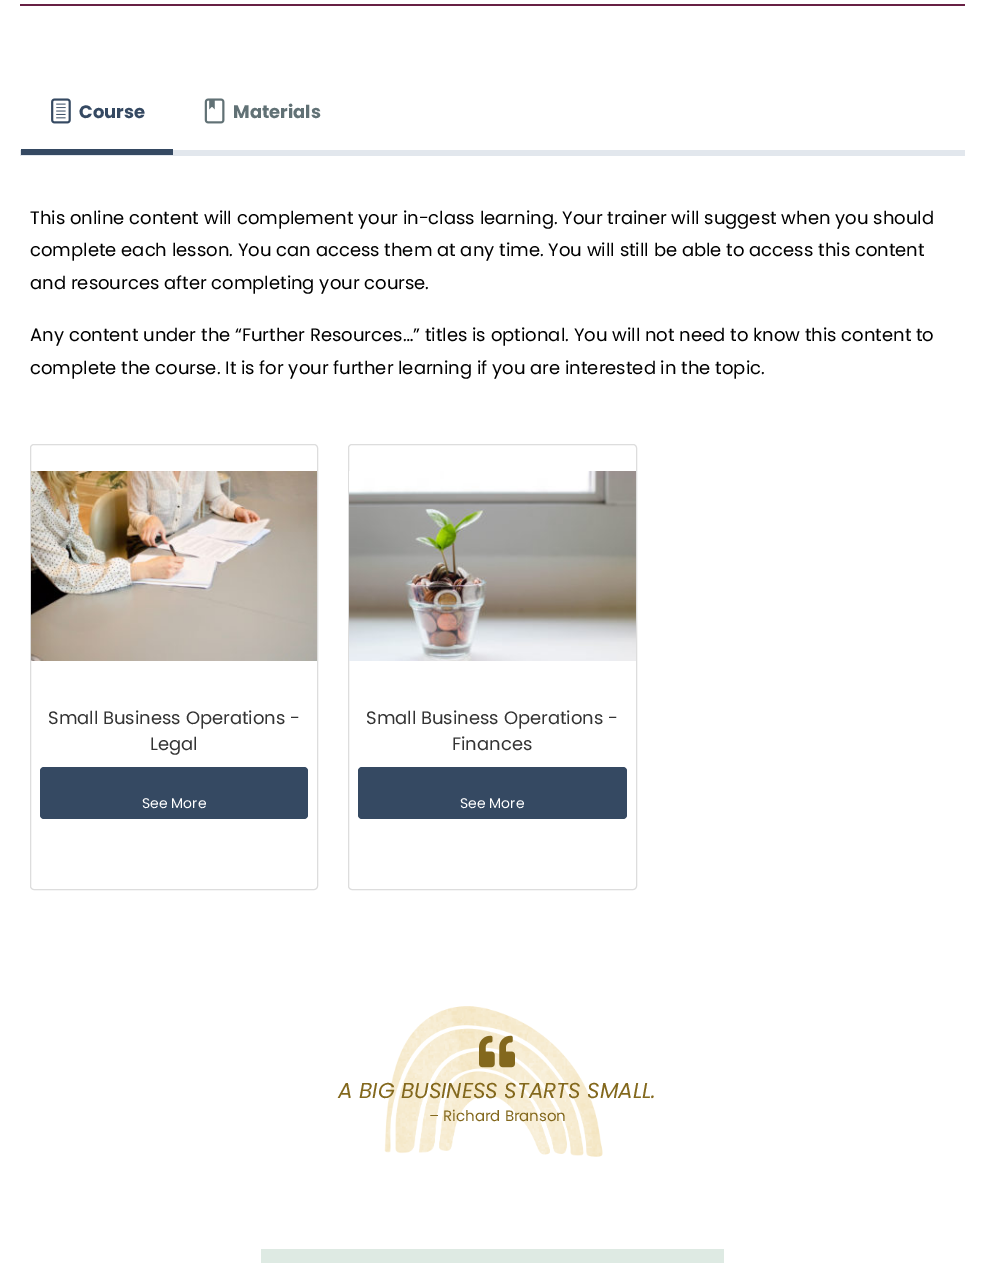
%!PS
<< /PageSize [985 1263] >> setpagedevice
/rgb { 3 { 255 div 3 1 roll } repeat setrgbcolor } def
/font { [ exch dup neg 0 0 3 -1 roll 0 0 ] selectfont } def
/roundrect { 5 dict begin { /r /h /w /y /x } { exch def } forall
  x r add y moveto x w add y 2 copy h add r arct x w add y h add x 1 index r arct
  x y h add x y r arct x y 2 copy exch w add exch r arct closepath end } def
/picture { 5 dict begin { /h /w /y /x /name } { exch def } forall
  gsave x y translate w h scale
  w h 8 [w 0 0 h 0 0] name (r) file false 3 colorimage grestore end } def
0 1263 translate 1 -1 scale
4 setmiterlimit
255 255 255 rgb
0 0 985 1263 rectfill
103 32 68 rgb
20 4 945 2 rectfill
(img/1.rgb) 51 98 20 26 picture
226 231 237 rgb
20 150 945 6 rectfill
53 73 98 rgb
21 149 152 6 rectfill
(img/2.rgb) 204 98 21 26 picture
221 221 221 rgb
30.5 444.5 287 445 3.5 roundrect stroke
(img/3.rgb) 31 471 286 190 picture
53 73 98 rgb
40 767 268 52 4 roundrect fill
221 221 221 rgb
348.5 444.5 288 445 3.5 roundrect stroke
(img/4.rgb) 349 471 287 190 picture
53 73 98 rgb
358 767 269 52 4 roundrect fill
(img/5.rgb) 384 1006 219 151 picture
(img/6.rgb) 479 1035 36 33 picture
222 234 227 rgb
261 1249 463 14 rectfill
/Poppins-Bold 18 font
53 73 98 rgb
79 118 moveto (Course) show
97 113 117 rgb
233 118 moveto (Materials) show
/Poppins-Regular 18 font
0 0 0 rgb
[
  [(This online content will complement your in-class learning. Your trainer will suggest when you should) 30 224]
  [(complete each lesson. You can access them at any time. You will still be able to access this content) 30 256]
  [(and resources after completing your course.) 30 289]
  [(Any content under the “Further Resources…” titles is optional. You will not need to know this content to) 30 341]
  [(complete the course. It is for your further learning if you are interested in the topic.) 30 374]
] { aload pop moveto show } forall
51 51 51 rgb
48 724 moveto (Small Business Operations -) show
150 750 moveto (Legal) show
/Poppins-Regular 14 font
255 255 255 rgb
142 808 moveto (See More) show
/Poppins-Regular 18 font
51 51 51 rgb
366 724 moveto (Small Business Operations -) show
452 750 moveto (Finances) show
/Poppins-Regular 14 font
255 255 255 rgb
460 808 moveto (See More) show
/Poppins-Italic 21.6 font
131 104 29 rgb
338 1098 moveto (A BIG BUSINESS STARTS SMALL.) show
/Poppins-Regular 15 font
429 1121 moveto (– Richard Branson) show
showpage
